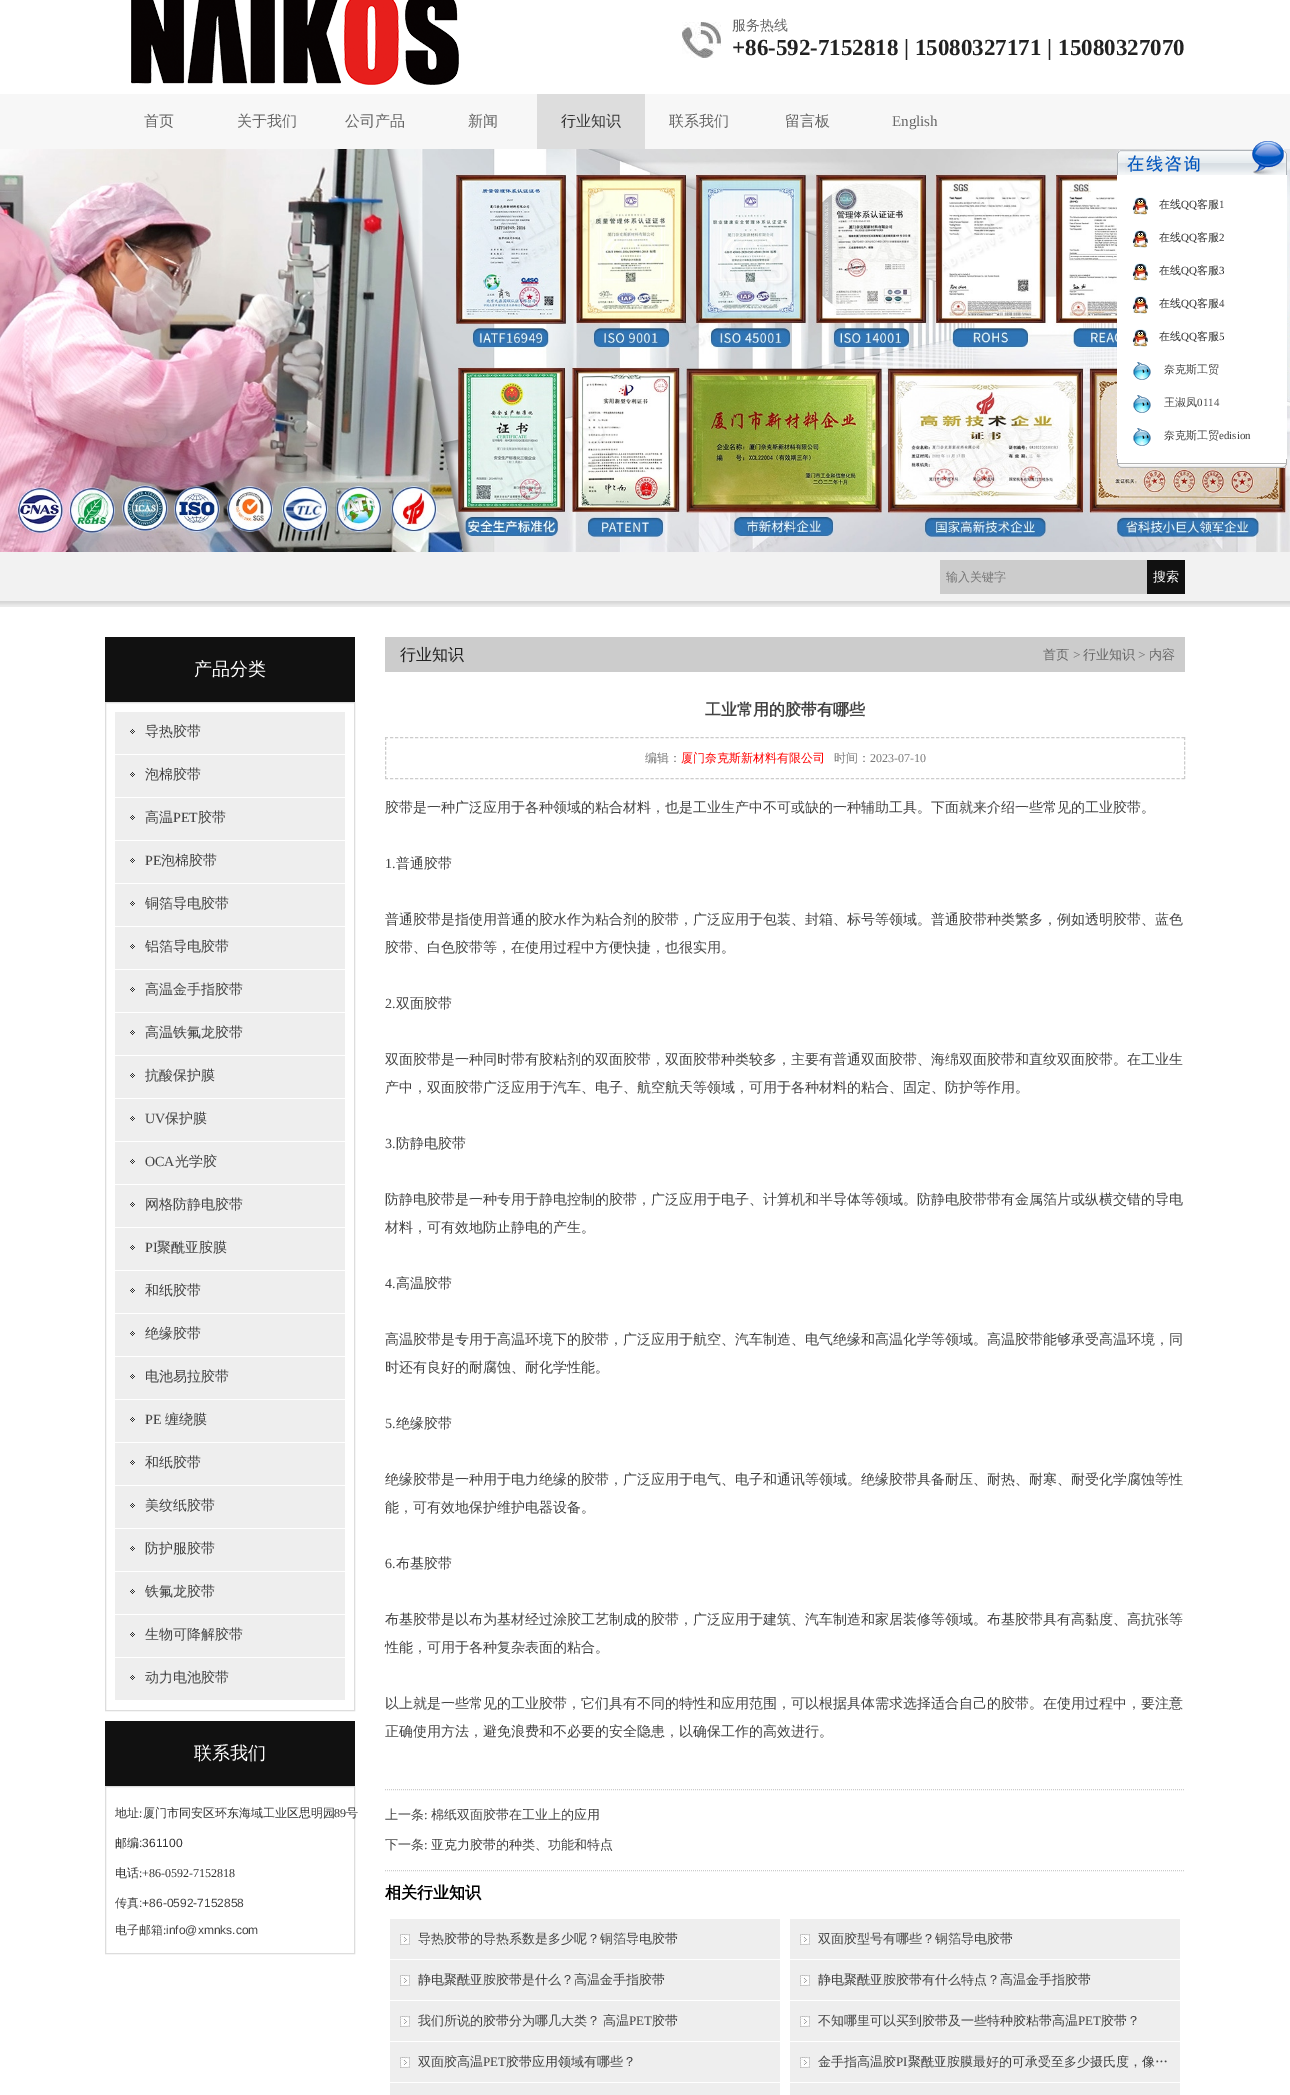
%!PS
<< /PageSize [1290 2095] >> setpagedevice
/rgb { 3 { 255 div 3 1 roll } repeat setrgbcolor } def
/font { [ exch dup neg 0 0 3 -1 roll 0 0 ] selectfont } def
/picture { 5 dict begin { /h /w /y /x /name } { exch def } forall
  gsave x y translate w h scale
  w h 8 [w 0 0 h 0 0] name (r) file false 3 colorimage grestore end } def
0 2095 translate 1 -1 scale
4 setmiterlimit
255 255 255 rgb
0 0 1290 2095 rectfill
(img/1.rgb) 131 0 328 85 picture
(img/2.rgb) 682 22 39 36 picture
247 247 247 rgb
0 94 1290 55 rectfill
221 221 221 rgb
537 94 108 55 rectfill
(img/3.rgb) 0 149 1290 403 picture
(img/4.rgb) 1117 141 170 34 picture
255 255 255 rgb
1117 175 170 284 rectfill
(img/5.rgb) 1132 197 16 18 picture
(img/5.rgb) 1132 230 16 18 picture
(img/5.rgb) 1132 263 16 18 picture
(img/5.rgb) 1132 296 16 18 picture
(img/5.rgb) 1132 329 16 18 picture
(img/6.rgb) 1133 362 18 18 picture
(img/6.rgb) 1133 395 18 18 picture
(img/6.rgb) 1133 428 18 18 picture
(img/7.rgb) 1117 459 170 9 picture
242 242 242 rgb
0 552 1290 49 rectfill
(img/8.rgb) 0 601 1290 6 picture
[
  [940 560 207 34 204 204 204]
  [1147 560 38 34 17 17 17]
  [105 637 250 65 17 17 17]
] { aload pop rgb rectfill } forall
221 221 221 rgb
105.5 702.5 249 1008 rectstroke
238 238 238 rgb
115 712 230 42 rectfill
(img/9.rgb) 130 729 5 5 picture
115 755 230 42 rectfill
(img/9.rgb) 130 772 5 5 picture
115 798 230 42 rectfill
(img/9.rgb) 130 815 5 5 picture
115 841 230 42 rectfill
(img/9.rgb) 130 858 5 5 picture
115 884 230 42 rectfill
(img/9.rgb) 130 901 5 5 picture
115 927 230 42 rectfill
(img/9.rgb) 130 944 5 5 picture
115 970 230 42 rectfill
(img/9.rgb) 130 987 5 5 picture
115 1013 230 42 rectfill
(img/9.rgb) 130 1030 5 5 picture
115 1056 230 42 rectfill
(img/9.rgb) 130 1073 5 5 picture
115 1099 230 42 rectfill
(img/9.rgb) 130 1116 5 5 picture
115 1142 230 42 rectfill
(img/9.rgb) 130 1159 5 5 picture
115 1185 230 42 rectfill
(img/9.rgb) 130 1202 5 5 picture
115 1228 230 42 rectfill
(img/9.rgb) 130 1245 5 5 picture
115 1271 230 42 rectfill
(img/9.rgb) 130 1288 5 5 picture
115 1314 230 42 rectfill
(img/9.rgb) 130 1331 5 5 picture
115 1357 230 42 rectfill
(img/9.rgb) 130 1374 5 5 picture
115 1400 230 42 rectfill
(img/9.rgb) 130 1417 5 5 picture
115 1443 230 42 rectfill
(img/9.rgb) 130 1460 5 5 picture
115 1486 230 42 rectfill
(img/9.rgb) 130 1503 5 5 picture
115 1529 230 42 rectfill
(img/9.rgb) 130 1546 5 5 picture
115 1572 230 42 rectfill
(img/9.rgb) 130 1589 5 5 picture
115 1615 230 42 rectfill
(img/9.rgb) 130 1632 5 5 picture
115 1658 230 42 rectfill
(img/9.rgb) 130 1675 5 5 picture
17 17 17 rgb
105 1721 250 65 rectfill
221 221 221 rgb
105.5 1786.5 249 167 rectstroke
204 204 204 rgb
385 637 800 35 rectfill
[3 2.01] 0 setdash
385 737.5 moveto 1185 737.5 lineto stroke
[3 1.88] 0 setdash
1184.5 737 moveto 1184.5 779 lineto stroke
[3 2.01] 0 setdash
385 778.5 moveto 1185 778.5 lineto stroke
[3 1.88] 0 setdash
385.5 737 moveto 385.5 779 lineto stroke
[1 1] 0 setdash
385 1789.5 moveto 1185 1789.5 lineto stroke
385 1870.5 moveto 1185 1870.5 lineto stroke
238 238 238 rgb
390 1919 390 40 rectfill
(img/10.rgb) 400 1934 10 11 picture
790 1919 390 40 rectfill
(img/10.rgb) 800 1934 10 11 picture
390 1960 390 40 rectfill
(img/10.rgb) 400 1975 10 11 picture
790 1960 390 40 rectfill
(img/10.rgb) 800 1975 10 11 picture
390 2001 390 40 rectfill
(img/10.rgb) 400 2016 10 11 picture
790 2001 390 40 rectfill
(img/10.rgb) 800 2016 10 11 picture
390 2042 390 40 rectfill
(img/10.rgb) 400 2057 10 11 picture
790 2042 390 40 rectfill
(img/10.rgb) 800 2057 10 11 picture
390 2083 390 12 rectfill
790 2083 390 12 rectfill
/WenQuanYiZenHei-Medium 14 font
102 102 102 rgb
732 30 moveto (服务热线) show
/LiberationSerif-Bold 23 font
34 34 34 rgb
732 55 moveto (+86-592-7152818 | 15080327171 | 15080327070) show
/WenQuanYiZenHei-Medium 15 font
102 102 102 rgb
[
  [(首页) 144 126]
  [(关于我们) 237 126]
  [(公司产品) 345 126]
  [(新闻) 468 126]
] { aload pop moveto show } forall
51 51 51 rgb
561 126 moveto (行业知识) show
102 102 102 rgb
669 126 moveto (联系我们) show
785 126 moveto (留言板) show
/LiberationSerif-Regular 15 font
892 126 moveto (English) show
/WenQuanYiZenHei-Medium 11 font
51 51 51 rgb
1159 208 moveto (在线) show
/LiberationSerif-Regular 11 font
1181 208 moveto (QQ) show
/WenQuanYiZenHei-Medium 11 font
1197 208 moveto (客服) show
/LiberationSerif-Regular 11 font
1219 208 moveto (1) show
/WenQuanYiZenHei-Medium 11 font
1159 241 moveto (在线) show
/LiberationSerif-Regular 11 font
1181 241 moveto (QQ) show
/WenQuanYiZenHei-Medium 11 font
1197 241 moveto (客服) show
/LiberationSerif-Regular 11 font
1219 241 moveto (2) show
/WenQuanYiZenHei-Medium 11 font
1159 274 moveto (在线) show
/LiberationSerif-Regular 11 font
1181 274 moveto (QQ) show
/WenQuanYiZenHei-Medium 11 font
1197 274 moveto (客服) show
/LiberationSerif-Regular 11 font
1219 274 moveto (3) show
/WenQuanYiZenHei-Medium 11 font
1159 307 moveto (在线) show
/LiberationSerif-Regular 11 font
1181 307 moveto (QQ) show
/WenQuanYiZenHei-Medium 11 font
1197 307 moveto (客服) show
/LiberationSerif-Regular 11 font
1219 307 moveto (4) show
/WenQuanYiZenHei-Medium 11 font
1159 340 moveto (在线) show
/LiberationSerif-Regular 11 font
1181 340 moveto (QQ) show
/WenQuanYiZenHei-Medium 11 font
1197 340 moveto (客服) show
/LiberationSerif-Regular 11 font
1219 340 moveto (5) show
/WenQuanYiZenHei-Medium 11 font
68 68 68 rgb
1164 373 moveto (奈克斯工贸) show
1164 406 moveto (王淑凤) show
/LiberationSerif-Regular 11 font
1197 406 moveto (0114) show
/WenQuanYiZenHei-Medium 11 font
1164 439 moveto (奈克斯工贸) show
/LiberationSerif-Regular 11 font
1219 439 moveto (edision) show
/WenQuanYiZenHei-Medium 12 font
119 119 119 rgb
946 581 moveto (输入关键字) show
/WenQuanYiZenHei-Medium 13 font
255 255 255 rgb
1153 581 moveto (搜索) show
/WenQuanYiZenHei-Medium 18 font
194 675 moveto (产品分类) show
/WenQuanYiZenHei-Medium 14 font
68 68 68 rgb
[
  [(导热胶带) 145 736]
  [(泡棉胶带) 145 779]
  [(高温) 145 822]
] { aload pop moveto show } forall
/LiberationSerif-Regular 14 font
173 822 moveto (PET) show
/WenQuanYiZenHei-Medium 14 font
198 822 moveto (胶带) show
/LiberationSerif-Regular 14 font
145 865 moveto (PE) show
/WenQuanYiZenHei-Medium 14 font
[
  [(泡棉胶带) 161 865]
  [(铜箔导电胶带) 145 908]
  [(铝箔导电胶带) 145 951]
  [(高温金手指胶带) 145 994]
  [(高温铁氟龙胶带) 145 1037]
  [(抗酸保护膜) 145 1080]
] { aload pop moveto show } forall
/LiberationSerif-Regular 14 font
145 1123 moveto (UV) show
/WenQuanYiZenHei-Medium 14 font
165 1123 moveto (保护膜) show
/LiberationSerif-Regular 14 font
145 1166 moveto (OCA) show
/WenQuanYiZenHei-Medium 14 font
175 1166 moveto (光学胶) show
145 1209 moveto (网格防静电胶带) show
/LiberationSerif-Regular 14 font
145 1252 moveto (PI) show
/WenQuanYiZenHei-Medium 14 font
[
  [(聚酰亚胺膜) 157 1252]
  [(和纸胶带) 145 1295]
  [(绝缘胶带) 145 1338]
  [(电池易拉胶带) 145 1381]
] { aload pop moveto show } forall
/LiberationSerif-Regular 14 font
145 1424 moveto (PE) show
/WenQuanYiZenHei-Medium 14 font
[
  [(缠绕膜) 165 1424]
  [(和纸胶带) 145 1467]
  [(美纹纸胶带) 145 1510]
  [(防护服胶带) 145 1553]
  [(铁氟龙胶带) 145 1596]
  [(生物可降解胶带) 145 1639]
  [(动力电池胶带) 145 1682]
] { aload pop moveto show } forall
/WenQuanYiZenHei-Medium 18 font
255 255 255 rgb
194 1759 moveto (联系我们) show
/WenQuanYiZenHei-Medium 12 font
51 51 51 rgb
115 1817 moveto (地址 厦门市同安区环东海域工业区思明园) show
/LiberationSerif-Regular 12 font
334 1817 moveto (89) show
/WenQuanYiZenHei-Medium 12 font
346 1817 moveto (号) show
/LiberationSerif-Regular 12 font
139 1817 moveto (:) show
/WenQuanYiZenHei-Medium 12 font
115 1847 moveto (邮编) show
/LiberationSans-Regular 12 font
139 1847 moveto (:361100) show
/WenQuanYiZenHei-Medium 12 font
115 1877 moveto (电话) show
/LiberationSerif-Regular 12 font
139 1877 moveto (:+86-0592-7152818) show
/WenQuanYiZenHei-Medium 12 font
68 68 68 rgb
115 1907 moveto (传真) show
/LiberationSans-Regular 12 font
139 1907 moveto (:+86-0592-7152858) show
/WenQuanYiZenHei-Medium 12 font
115 1934 moveto (电子邮箱) show
/LiberationSerif-Regular 12 font
51 51 51 rgb
163 1934 moveto (:) show
/LiberationSans-Regular 12 font
68 68 68 rgb
166 1934 moveto (info@xmnks.com) show
/WenQuanYiZenHei-Medium 16 font
34 34 34 rgb
400 660 moveto (行业知识) show
/WenQuanYiZenHei-Medium 13 font
102 102 102 rgb
1043 659 moveto (首页) show
/LiberationSerif-Regular 13 font
1073 659 moveto (>) show
/WenQuanYiZenHei-Medium 13 font
1083 659 moveto (行业知识) show
/LiberationSerif-Regular 13 font
1138 659 moveto (>) show
/WenQuanYiZenHei-Medium 13 font
1149 659 moveto (内容) show
/WenQuanYiZenHei-Bold 16 font
68 68 68 rgb
705 715 moveto (工业常用的胶带有哪些) show
/WenQuanYiZenHei-Medium 12 font
119 119 119 rgb
645 762 moveto (编辑：) show
255 0 0 rgb
681 762 moveto (厦门奈克斯新材料有限公司) show
119 119 119 rgb
834 762 moveto (时间：) show
/LiberationSerif-Regular 12 font
870 762 moveto (2023-07-10) show
/WenQuanYiZenHei-Medium 14 font
68 68 68 rgb
385 812 moveto (胶带是一种广泛应用于各种领域的粘合材料，也是工业生产中不可或缺的一种辅助工具。下面就来介绍一些常见的工业胶带。) show
/LiberationSerif-Regular 14 font
385 868 moveto (1.) show
/WenQuanYiZenHei-Medium 14 font
[
  [(普通胶带) 396 868]
  [(普通胶带是指使用普通的胶水作为粘合剂的胶带，广泛应用于包装、封箱、标号等领域。普通胶带种类繁多，例如透明胶带、蓝色) 385 924]
  [(胶带、白色胶带等，在使用过程中方便快捷，也很实用。) 385 952]
] { aload pop moveto show } forall
/LiberationSerif-Regular 14 font
385 1008 moveto (2.) show
/WenQuanYiZenHei-Medium 14 font
[
  [(双面胶带) 396 1008]
  [(双面胶带是一种同时带有胶粘剂的双面胶带，双面胶带种类较多，主要有普通双面胶带、海绵双面胶带和直纹双面胶带。在工业生) 385 1064]
  [(产中，双面胶带广泛应用于汽车、电子、航空航天等领域，可用于各种材料的粘合、固定、防护等作用。) 385 1092]
] { aload pop moveto show } forall
/LiberationSerif-Regular 14 font
385 1148 moveto (3.) show
/WenQuanYiZenHei-Medium 14 font
[
  [(防静电胶带) 396 1148]
  [(防静电胶带是一种专用于静电控制的胶带，广泛应用于电子、计算机和半导体等领域。防静电胶带带有金属箔片或纵横交错的导电) 385 1204]
  [(材料，可有效地防止静电的产生。) 385 1232]
] { aload pop moveto show } forall
/LiberationSerif-Regular 14 font
385 1288 moveto (4.) show
/WenQuanYiZenHei-Medium 14 font
[
  [(高温胶带) 396 1288]
  [(高温胶带是专用于高温环境下的胶带，广泛应用于航空、汽车制造、电气绝缘和高温化学等领域。高温胶带能够承受高温环境，同) 385 1344]
  [(时还有良好的耐腐蚀、耐化学性能。) 385 1372]
] { aload pop moveto show } forall
/LiberationSerif-Regular 14 font
385 1428 moveto (5.) show
/WenQuanYiZenHei-Medium 14 font
[
  [(绝缘胶带) 396 1428]
  [(绝缘胶带是一种用于电力绝缘的胶带，广泛应用于电气、电子和通讯等领域。绝缘胶带具备耐压、耐热、耐寒、耐受化学腐蚀等性) 385 1484]
  [(能，可有效地保护维护电器设备。) 385 1512]
] { aload pop moveto show } forall
/LiberationSerif-Regular 14 font
385 1568 moveto (6.) show
/WenQuanYiZenHei-Medium 14 font
[
  [(布基胶带) 396 1568]
  [(布基胶带是以布为基材经过涂胶工艺制成的胶带，广泛应用于建筑、汽车制造和家居装修等领域。布基胶带具有高黏度、高抗张等) 385 1624]
  [(性能，可用于各种复杂表面的粘合。) 385 1652]
  [(以上就是一些常见的工业胶带，它们具有不同的特性和应用范围，可以根据具体需求选择适合自己的胶带。在使用过程中，要注意) 385 1708]
  [(正确使用方法，避免浪费和不必要的安全隐患，以确保工作的高效进行。) 385 1736]
] { aload pop moveto show } forall
/WenQuanYiZenHei-Medium 13 font
385 1819 moveto (上一条) show
/LiberationSerif-Regular 13 font
424 1819 moveto (:) show
/WenQuanYiZenHei-Medium 13 font
431 1819 moveto (棉纸双面胶带在工业上的应用) show
385 1849 moveto (下一条) show
/LiberationSerif-Regular 13 font
424 1849 moveto (:) show
/WenQuanYiZenHei-Medium 13 font
431 1849 moveto (亚克力胶带的种类、功能和特点) show
/WenQuanYiZenHei-Bold 16 font
0 0 0 rgb
385 1898 moveto (相关行业知识) show
/WenQuanYiZenHei-Medium 13 font
68 68 68 rgb
[
  [(导热胶带的导热系数是多少呢？铜箔导电胶带) 418 1943]
  [(双面胶型号有哪些？铜箔导电胶带) 818 1943]
  [(静电聚酰亚胺胶带是什么？高温金手指胶带) 418 1984]
  [(静电聚酰亚胺胶带有什么特点？高温金手指胶带) 818 1984]
  [(我们所说的胶带分为哪几大类？) 418 2025]
  [(高温) 603 2025]
] { aload pop moveto show } forall
/LiberationSerif-Regular 13 font
629 2025 moveto (PET) show
/WenQuanYiZenHei-Medium 13 font
652 2025 moveto (胶带) show
818 2025 moveto (不知哪里可以买到胶带及一些特种胶粘带高温) show
/LiberationSerif-Regular 13 font
1078 2025 moveto (PET) show
/WenQuanYiZenHei-Medium 13 font
1101 2025 moveto (胶带？) show
418 2066 moveto (双面胶高温) show
/LiberationSerif-Regular 13 font
483 2066 moveto (PET) show
/WenQuanYiZenHei-Medium 13 font
506 2066 moveto (胶带应用领域有哪些？) show
818 2066 moveto (金手指高温胶) show
/LiberationSerif-Regular 13 font
896 2066 moveto (PI) show
/WenQuanYiZenHei-Medium 13 font
908 2066 moveto (聚酰亚胺膜最好的可承受至多少摄氏度，像…) show
showpage
